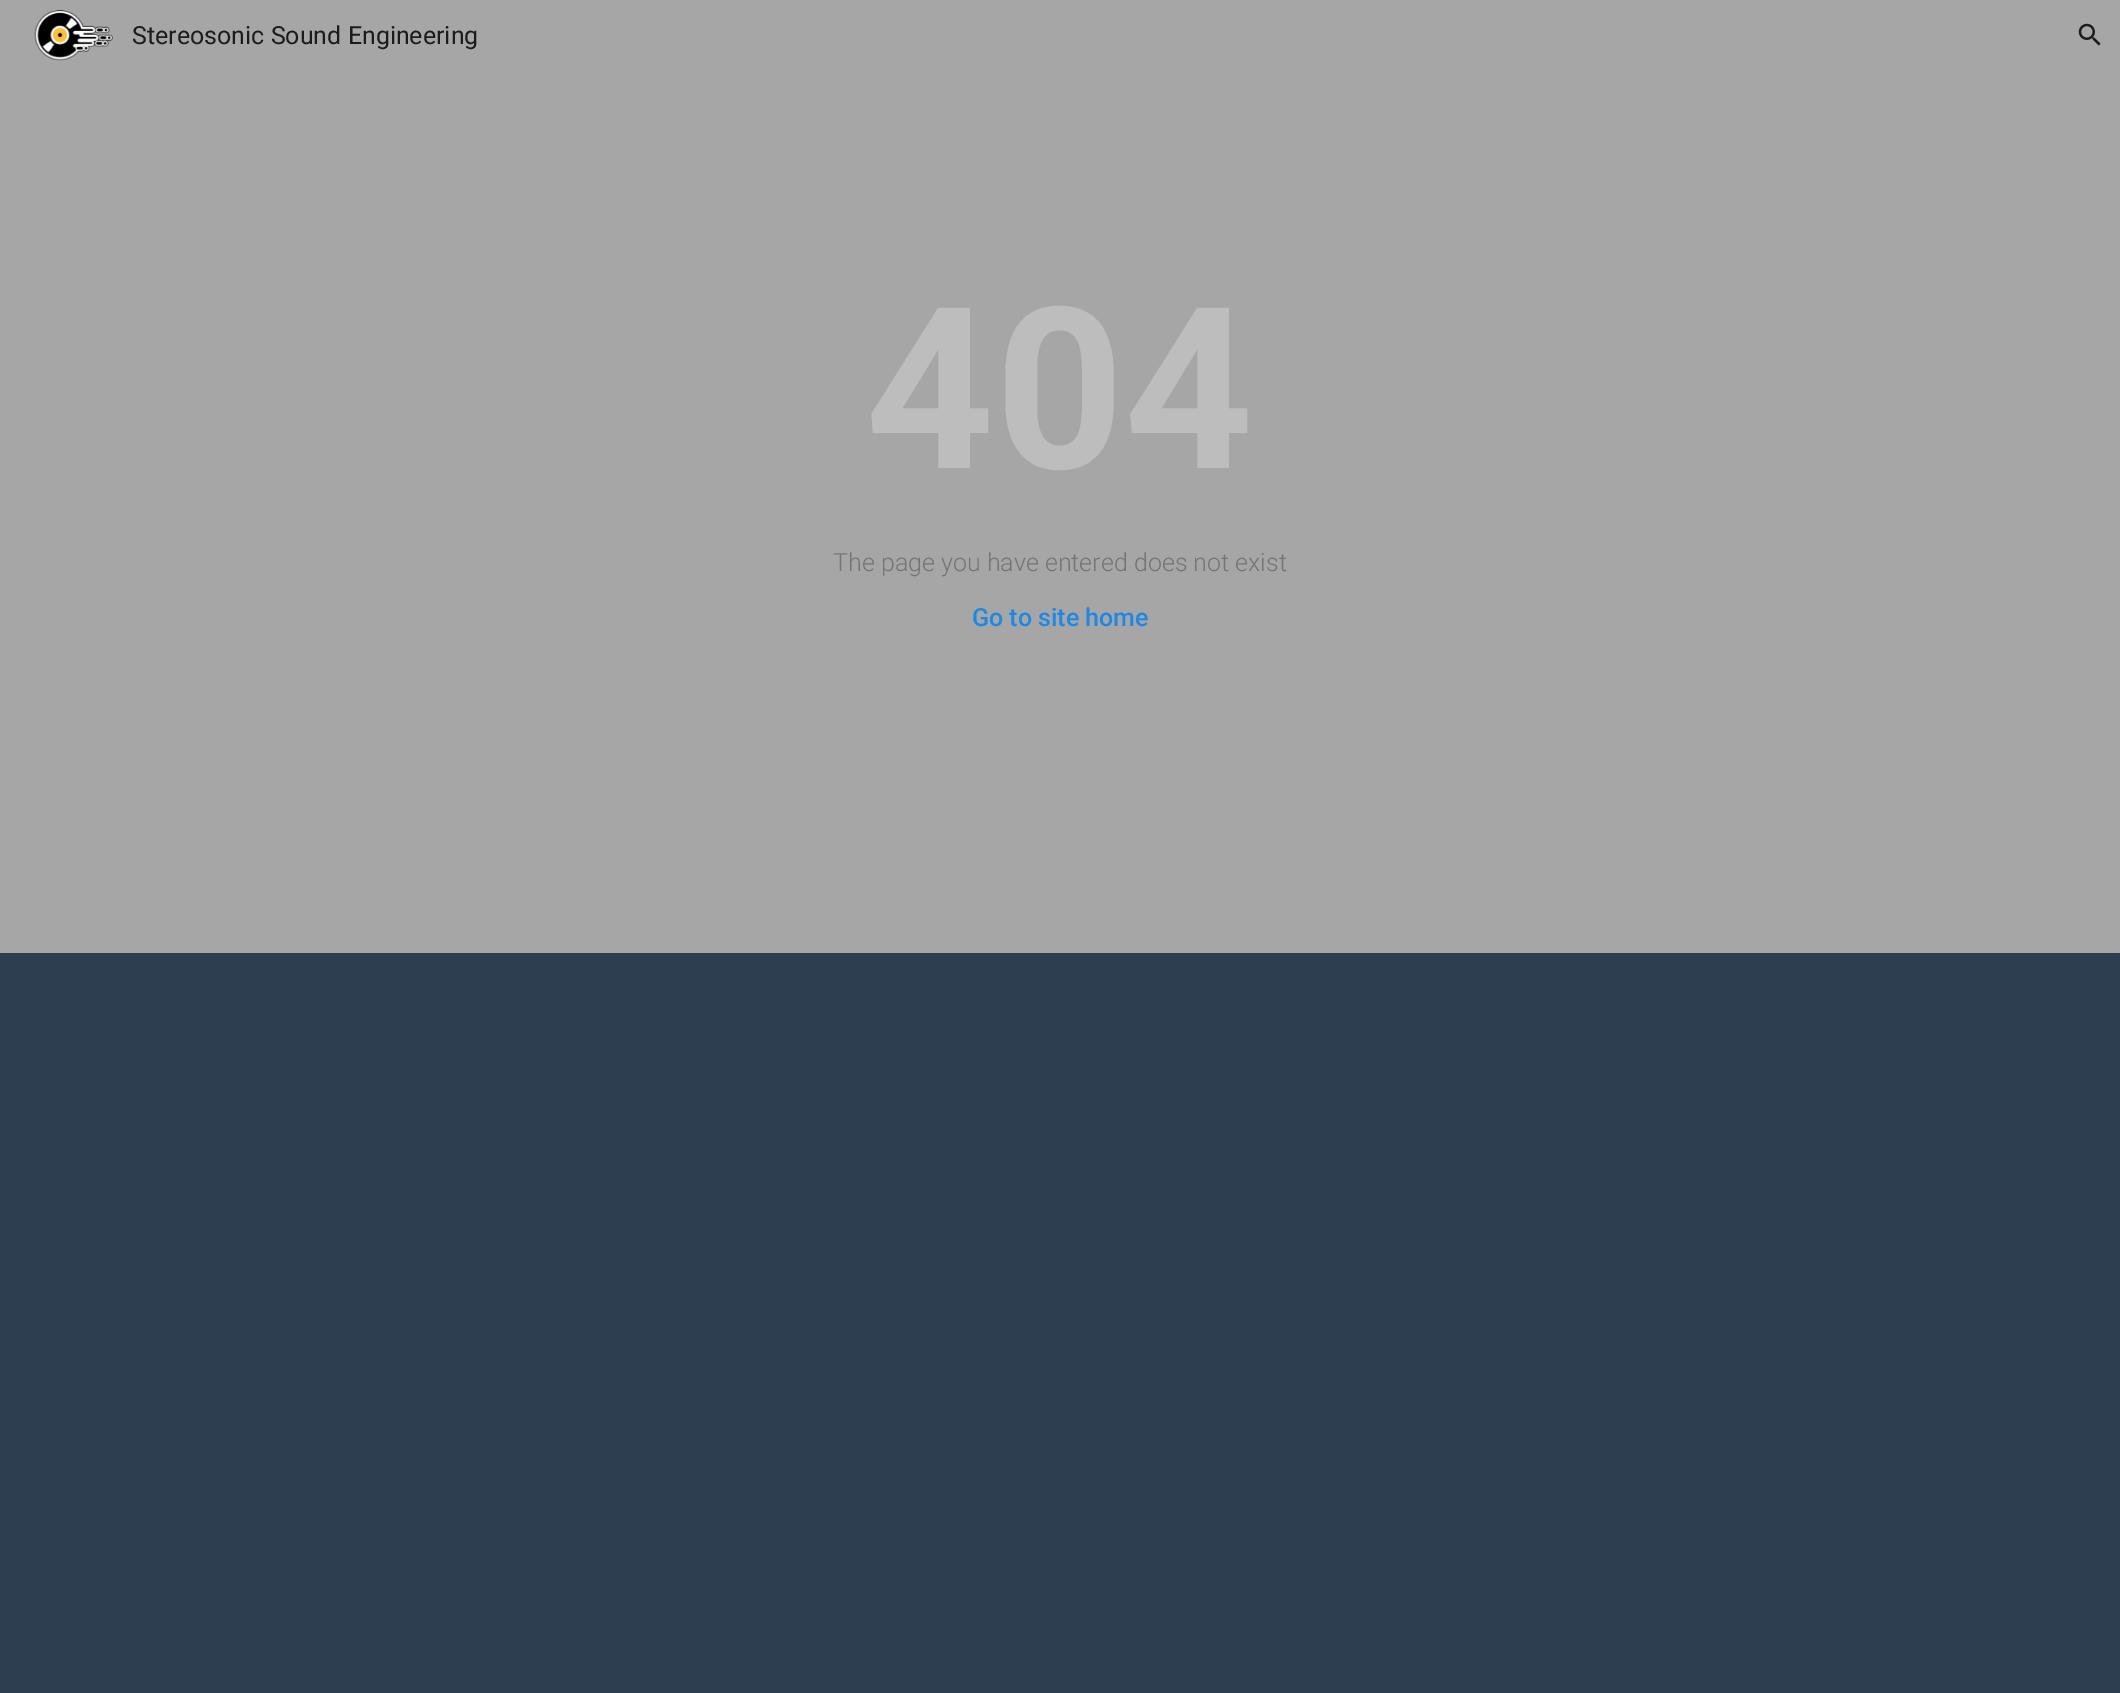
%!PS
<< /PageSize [2120 1693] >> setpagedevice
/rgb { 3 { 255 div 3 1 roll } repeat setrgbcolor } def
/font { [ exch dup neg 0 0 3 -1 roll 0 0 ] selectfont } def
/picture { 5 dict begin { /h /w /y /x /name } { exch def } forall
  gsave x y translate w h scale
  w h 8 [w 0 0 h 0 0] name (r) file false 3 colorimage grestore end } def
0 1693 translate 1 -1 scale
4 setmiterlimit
44 62 80 rgb
0 0 2120 1693 rectfill
166 166 166 rgb
0 0 2120 953 rectfill
(img/1.rgb) 34 9 79 52 picture
(img/2.rgb) 2078 23 23 23 picture
/Roboto-Regular 25 font
28 28 28 rgb
132 44 moveto (Stereosonic Sound Engineering) show
/Roboto-Bold 226 font
189 189 189 rgb
865 468 moveto (404) show
/Roboto-Light 25 font
117 117 117 rgb
833 571 moveto (The page you have entered does not exist) show
/Roboto-Medium 25 font
30 136 229 rgb
972 626 moveto (Go to site home) show
showpage
